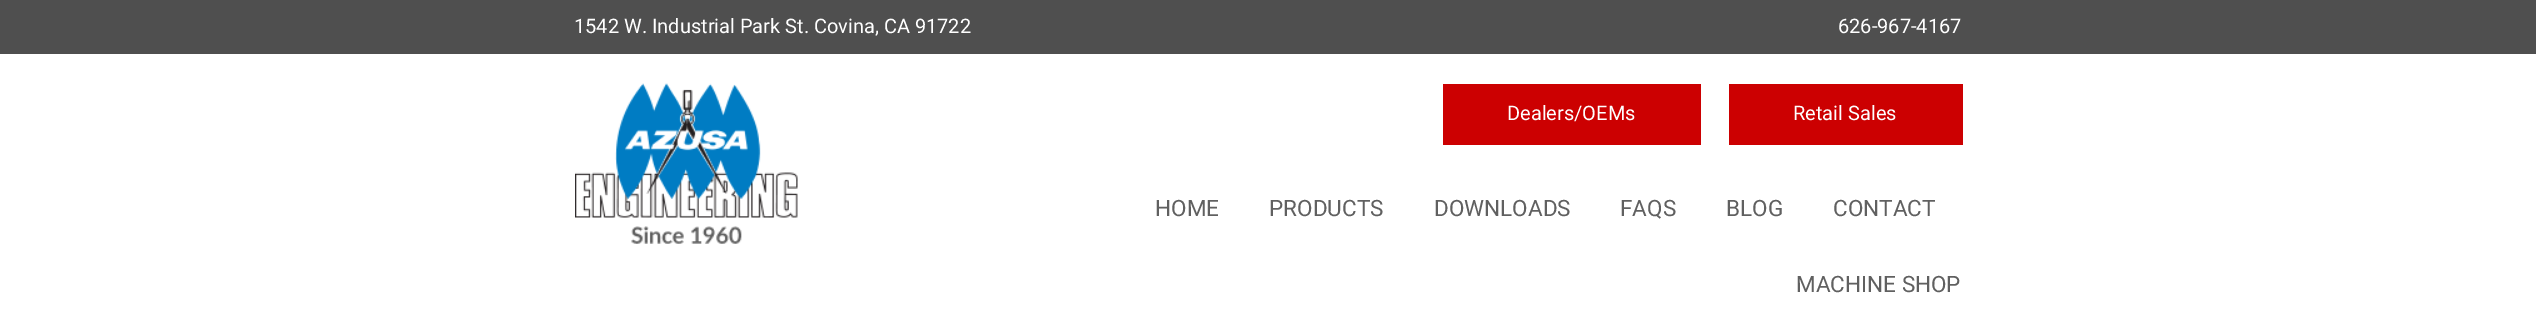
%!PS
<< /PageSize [2536 327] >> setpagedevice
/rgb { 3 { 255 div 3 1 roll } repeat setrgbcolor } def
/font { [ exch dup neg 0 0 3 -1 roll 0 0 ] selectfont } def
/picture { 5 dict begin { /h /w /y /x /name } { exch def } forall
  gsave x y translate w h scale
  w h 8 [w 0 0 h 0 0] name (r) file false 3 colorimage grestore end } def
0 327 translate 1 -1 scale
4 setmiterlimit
255 255 255 rgb
0 0 2536 327 rectfill
79 79 79 rgb
0 0 2536 54 rectfill
(img/1.rgb) 575 83 223 161 picture
204 0 1 rgb
1443 84 258 61 rectfill
1729 84 234 61 rectfill
/Roboto-Regular 20 font
255 255 255 rgb
[
  [(1542 W. Industrial Park St. Covina, CA 91722) 574 33]
  [(626-967-4167) 1838 33]
  [(Dealers/OEMs) 1507 120]
  [(Retail Sales) 1793 120]
] { aload pop moveto show } forall
/Roboto-Regular 22.5 font
96 96 96 rgb
[
  [(HOME) 1155 216]
  [(PRODUCTS) 1269 216]
  [(DOWNLOADS) 1434 216]
  [(FAQS) 1620 216]
  [(BLOG) 1726 216]
  [(CONTACT) 1833 216]
  [(MACHINE SHOP) 1796 292]
] { aload pop moveto show } forall
showpage
